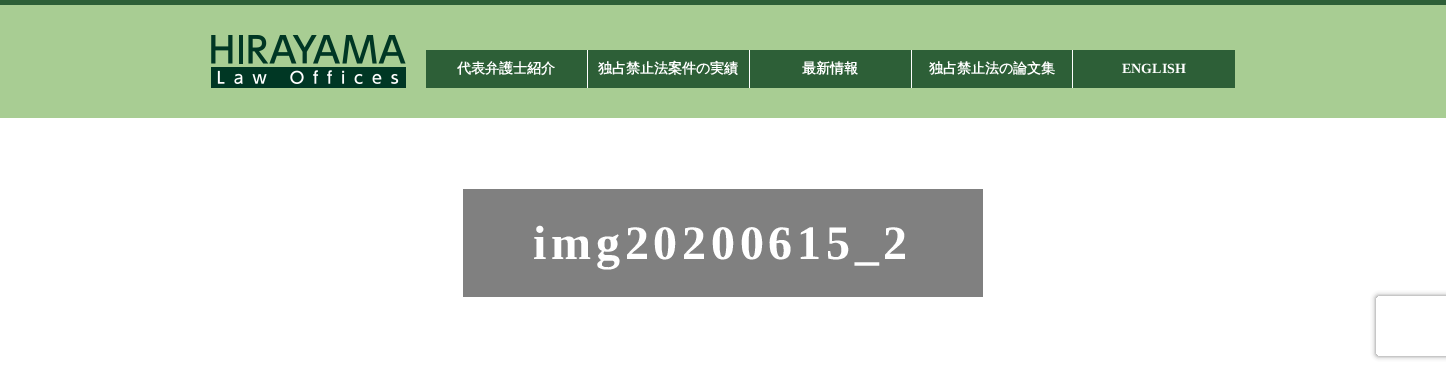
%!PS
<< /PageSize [1446 370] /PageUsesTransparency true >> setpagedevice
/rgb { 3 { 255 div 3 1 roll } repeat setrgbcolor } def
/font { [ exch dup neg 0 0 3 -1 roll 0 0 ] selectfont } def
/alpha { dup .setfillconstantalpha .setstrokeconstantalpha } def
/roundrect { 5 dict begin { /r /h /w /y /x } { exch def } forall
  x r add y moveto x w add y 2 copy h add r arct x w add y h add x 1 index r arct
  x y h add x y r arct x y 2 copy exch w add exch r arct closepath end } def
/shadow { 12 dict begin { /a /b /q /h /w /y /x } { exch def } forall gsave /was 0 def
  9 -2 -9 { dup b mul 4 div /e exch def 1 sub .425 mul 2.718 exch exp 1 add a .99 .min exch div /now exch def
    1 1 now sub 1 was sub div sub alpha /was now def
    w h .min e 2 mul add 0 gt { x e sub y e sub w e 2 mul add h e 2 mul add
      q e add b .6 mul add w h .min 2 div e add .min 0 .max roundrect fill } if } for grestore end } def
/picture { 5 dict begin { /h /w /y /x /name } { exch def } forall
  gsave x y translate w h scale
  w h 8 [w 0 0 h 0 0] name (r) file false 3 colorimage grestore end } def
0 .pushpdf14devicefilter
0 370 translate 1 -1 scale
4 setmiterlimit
255 255 255 rgb
0 0 1446 370 rectfill
168 205 147 rgb
0 5 1446 113 rectfill
45 95 55 rgb
0 0 1446 5 rectfill
(img/1.rgb) 211 35 195 53 picture
[
  [426 50 161 38 45 95 55]
  [587 50 1 38 255 255 255]
  [588 50 161 38 45 95 55]
  [749 50 1 38 255 255 255]
  [750 50 161 38 45 95 55]
  [911 50 1 38 255 255 255]
  [912 50 160 38 45 95 55]
  [1072 50 1 38 255 255 255]
  [1073 50 162 38 45 95 55]
  [463 189 520 108 128 128 128]
] { aload pop rgb rectfill } forall
gsave
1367 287 moveto 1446 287 lineto 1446 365 lineto 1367 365 lineto closepath 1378 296 moveto 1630 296 lineto 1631 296 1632 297 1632 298 curveto 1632 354 lineto 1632 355 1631 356 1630 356 curveto 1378 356 lineto 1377 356 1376 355 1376 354 curveto 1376 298 lineto 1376 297 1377 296 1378 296 curveto closepath eoclip newpath
1376 296 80 60 2 2.5 1 shadow
grestore
/WenQuanYiZenHei-Bold 14 font
255 255 255 rgb
[
  [(代表弁護士紹介) 457 73]
  [(独占禁止法案件の実績) 598 73]
  [(最新情報) 802 73]
  [(独占禁止法の論文集) 929 73]
] { aload pop moveto show } forall
/LiberationSerif-Bold 14 font
1122 73 moveto (ENGLISH) show
/LiberationSerif-Bold 48 font
533 259 moveto 4.75 0 (img20200615_2) ashow
.poppdf14devicefilter showpage
